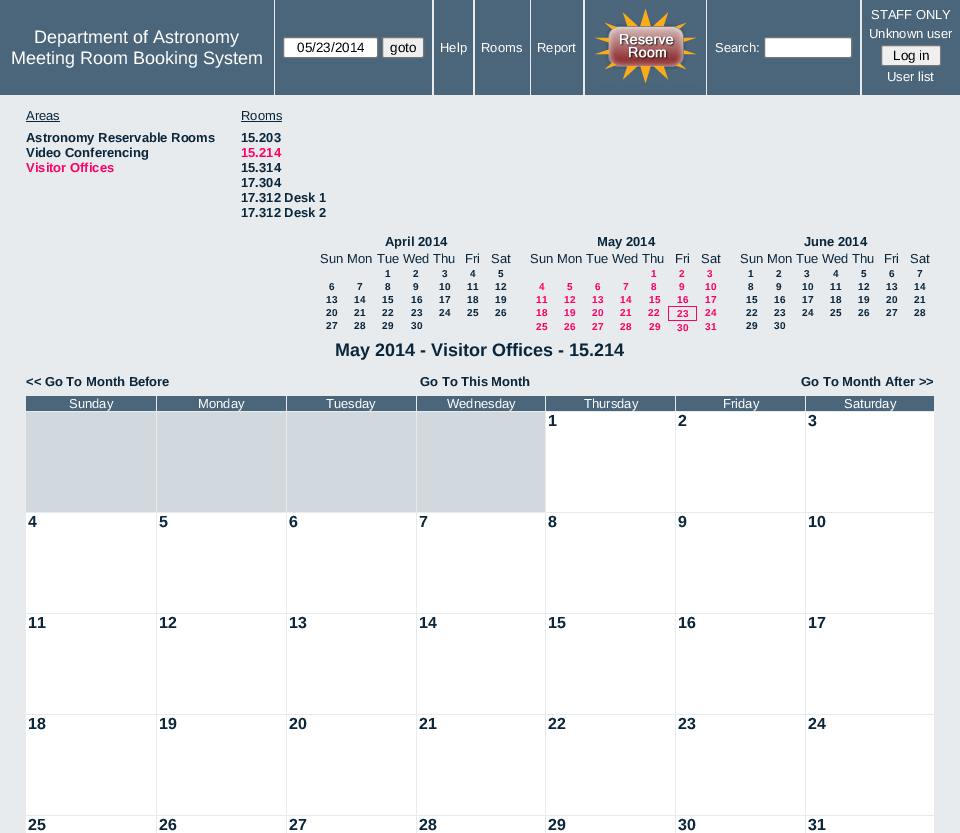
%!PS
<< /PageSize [960 833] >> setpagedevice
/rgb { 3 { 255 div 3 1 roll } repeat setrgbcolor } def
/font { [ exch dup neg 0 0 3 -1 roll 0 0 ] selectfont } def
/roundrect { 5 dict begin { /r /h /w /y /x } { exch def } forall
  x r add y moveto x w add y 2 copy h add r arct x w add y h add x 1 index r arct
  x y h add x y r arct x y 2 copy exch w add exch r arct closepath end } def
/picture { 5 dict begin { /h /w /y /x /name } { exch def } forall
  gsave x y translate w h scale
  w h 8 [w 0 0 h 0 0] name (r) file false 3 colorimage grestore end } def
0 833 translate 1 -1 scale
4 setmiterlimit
231 235 238 rgb
0 0 960 833 rectfill
75 102 123 rgb
0 0 274 95 rectfill
275 0 157 95 rectfill
255 255 255 rgb
283.5 37.5 94 20 1.5 roundrect gsave fill grestore
118 118 118 rgb
stroke
239 239 239 rgb
382.5 37.5 41 20 1.5 roundrect gsave fill grestore
118 118 118 rgb
stroke
[
  [434 0 39 95 75 102 123]
  [475 0 55 95 75 102 123]
  [531 0 52 95 75 102 123]
  [585 0 121 95 75 102 123]
] { aload pop rgb rectfill } forall
(img/1.rgb) 594 8 103 76 picture
707 0 153 95 rectfill
255 255 255 rgb
764.5 37.5 87 20 1.5 roundrect gsave fill grestore
118 118 118 rgb
stroke
75 102 123 rgb
862 0 98 95 rectfill
239 239 239 rgb
881.5 45.5 59 20 1.5 roundrect gsave fill grestore
118 118 118 rgb
stroke
[
  [26 121 34 1 11 38 59]
  [241 121 41 1 11 38 59]
  [668 306 29 1 255 0 102]
  [696 306 1 15 255 0 102]
  [668 320 29 1 255 0 102]
  [668 306 1 15 255 0 102]
  [26 396 130 15 75 102 123]
  [157 396 129 15 75 102 123]
  [287 396 129 15 75 102 123]
  [417 396 128 15 75 102 123]
  [546 396 129 15 75 102 123]
  [676 396 129 15 75 102 123]
  [806 396 128 15 75 102 123]
  [26 412 130 100 209 217 222]
  [157 412 129 100 209 217 222]
  [287 412 129 100 209 217 222]
  [417 412 128 100 209 217 222]
  [546 412 129 100 255 255 255]
  [676 412 129 100 255 255 255]
  [806 412 128 100 255 255 255]
  [26 513 130 100 255 255 255]
  [157 513 129 100 255 255 255]
  [287 513 129 100 255 255 255]
  [417 513 128 100 255 255 255]
  [546 513 129 100 255 255 255]
  [676 513 129 100 255 255 255]
  [806 513 128 100 255 255 255]
  [26 614 130 100 255 255 255]
  [157 614 129 100 255 255 255]
  [287 614 129 100 255 255 255]
  [417 614 128 100 255 255 255]
  [546 614 129 100 255 255 255]
  [676 614 129 100 255 255 255]
  [806 614 128 100 255 255 255]
  [26 715 130 100 255 255 255]
  [157 715 129 100 255 255 255]
  [287 715 129 100 255 255 255]
  [417 715 128 100 255 255 255]
  [546 715 129 100 255 255 255]
  [676 715 129 100 255 255 255]
  [806 715 128 100 255 255 255]
  [26 816 130 17 255 255 255]
  [157 816 129 17 255 255 255]
  [287 816 129 17 255 255 255]
  [417 816 128 17 255 255 255]
  [546 816 129 17 255 255 255]
  [676 816 129 17 255 255 255]
  [806 816 128 17 255 255 255]
] { aload pop rgb rectfill } forall
/LiberationSans-Regular 18 font
34 43 moveto (Department of Astronomy) show
11 64 moveto (Meeting Room Booking System) show
/LiberationSans-Regular 13.5 font
0 0 0 rgb
297 52 moveto (05/23/2014) show
390 52 moveto (goto) show
/LiberationSans-Regular 13 font
255 255 255 rgb
[
  [(Help) 440 52]
  [(Rooms) 481 52]
  [(Report) 537 52]
  [(Search:) 715 52]
  [(STAFF ONLY) 871 19]
  [(Unknown user) 869 38]
] { aload pop moveto show } forall
/LiberationSans-Regular 13.5 font
0 0 0 rgb
893 60 moveto (Log in) show
/LiberationSans-Regular 13 font
255 255 255 rgb
887 81 moveto (User list) show
11 38 59 rgb
26 120 moveto (Areas) show
/LiberationSans-Bold 13 font
26 142 moveto (Astronomy Reservable Rooms) show
26 157 moveto (Video Conferencing) show
255 0 102 rgb
26 172 moveto (Visitor Offices) show
/LiberationSans-Regular 13 font
11 38 59 rgb
241 120 moveto (Rooms) show
/LiberationSans-Bold 13 font
241 142 moveto (15.203) show
255 0 102 rgb
241 157 moveto (15.214) show
11 38 59 rgb
[
  [(15.314) 241 172]
  [(17.304) 241 187]
  [(17.312 Desk 1) 241 202]
  [(17.312 Desk 2) 241 217]
  [(April 2014) 385 246]
] { aload pop moveto show } forall
/LiberationSans-Regular 13 font
[
  [(Sun Mon) 320 263]
  [(Tue Wed Thu) 377 263]
  [(Fri) 465 263]
  [(Sat) 491 263]
] { aload pop moveto show } forall
/LiberationSans-Bold 10 font
[
  [(1) 385 277]
  [(2) 413 277]
  [(3) 442 277]
  [(4) 470 277]
  [(5) 498 277]
  [(6) 329 290]
  [(7) 357 290]
  [(8) 385 290]
  [(9) 413 290]
  [(10) 439 290]
  [(11) 467 290]
  [(12) 495 290]
  [(13) 326 303]
  [(14) 354 303]
  [(15) 382 303]
  [(16) 411 303]
  [(17) 439 303]
  [(18) 467 303]
  [(19) 495 303]
  [(20) 326 316]
  [(21) 354 316]
  [(22) 382 316]
  [(23) 411 316]
  [(24) 439 316]
  [(25) 467 316]
  [(26) 495 316]
  [(27) 326 329]
  [(28) 354 329]
  [(29) 382 329]
  [(30) 411 329]
] { aload pop moveto show } forall
/LiberationSans-Bold 13 font
597 246 moveto (May 2014) show
/LiberationSans-Regular 13 font
[
  [(Sun Mon) 530 263]
  [(Tue Wed Thu) 586 263]
  [(Fri) 675 263]
  [(Sat) 701 263]
] { aload pop moveto show } forall
/LiberationSans-Bold 10 font
255 0 102 rgb
[
  [(1) 651 277]
  [(2) 679 277]
  [(3) 707 277]
  [(4) 539 290]
  [(5) 567 290]
  [(6) 595 290]
  [(7) 623 290]
  [(8) 651 290]
  [(9) 679 290]
  [(10) 705 290]
  [(11) 536 303]
  [(12) 564 303]
  [(13) 592 303]
  [(14) 620 303]
  [(15) 649 303]
  [(16) 677 303]
  [(17) 705 303]
  [(18) 536 316]
  [(19) 564 316]
  [(20) 592 316]
  [(21) 620 316]
  [(22) 648 316]
  [(23) 677 317]
  [(24) 705 316]
  [(25) 536 330]
  [(26) 564 330]
  [(27) 592 330]
  [(28) 620 330]
  [(29) 649 330]
  [(30) 677 331]
  [(31) 705 330]
] { aload pop moveto show } forall
/LiberationSans-Bold 13 font
11 38 59 rgb
804 246 moveto (June 2014) show
/LiberationSans-Regular 13 font
[
  [(Sun Mon) 740 263]
  [(Tue Wed Thu) 796 263]
  [(Fri) 884 263]
  [(Sat) 910 263]
] { aload pop moveto show } forall
/LiberationSans-Bold 10 font
[
  [(1) 748 277]
  [(2) 776 277]
  [(3) 804 277]
  [(4) 833 277]
  [(5) 861 277]
  [(6) 889 277]
  [(7) 917 277]
  [(8) 748 290]
  [(9) 776 290]
  [(10) 802 290]
  [(11) 830 290]
  [(12) 858 290]
  [(13) 886 290]
  [(14) 914 290]
  [(15) 746 303]
  [(16) 774 303]
  [(17) 802 303]
  [(18) 830 303]
  [(19) 858 303]
  [(20) 886 303]
  [(21) 914 303]
  [(22) 746 316]
  [(23) 774 316]
  [(24) 802 316]
  [(25) 830 316]
  [(26) 858 316]
  [(27) 886 316]
  [(28) 914 316]
  [(29) 746 329]
  [(30) 774 329]
] { aload pop moveto show } forall
/LiberationSans-Bold 18 font
335 356 moveto (May 2014 - Visitor Offices - 15.214) show
/LiberationSans-Bold 13 font
[
  [(<< Go To Month Before) 26 386]
  [(Go To This Month) 420 386]
  [(Go To Month After >>) 801 386]
] { aload pop moveto show } forall
/LiberationSans-Regular 13 font
255 255 255 rgb
[
  [(Sunday) 69 408]
  [(Monday) 198 408]
  [(Tuesday) 326 408]
  [(Wednesday) 447 408]
  [(Thursday) 584 408]
  [(Friday) 723 408]
  [(Saturday) 844 408]
] { aload pop moveto show } forall
/LiberationSans-Bold 16 font
11 38 59 rgb
[
  [(1) 548 426]
  [(2) 678 426]
  [(3) 808 426]
  [(4) 28 527]
  [(5) 159 527]
  [(6) 289 527]
  [(7) 419 527]
  [(8) 548 527]
  [(9) 678 527]
  [(10) 808 527]
  [(11) 28 628]
  [(12) 159 628]
  [(13) 289 628]
  [(14) 419 628]
  [(15) 548 628]
  [(16) 678 628]
  [(17) 808 628]
  [(18) 28 729]
  [(19) 159 729]
  [(20) 289 729]
  [(21) 419 729]
  [(22) 548 729]
  [(23) 678 729]
  [(24) 808 729]
  [(25) 28 830]
  [(26) 159 830]
  [(27) 289 830]
  [(28) 419 830]
  [(29) 548 830]
  [(30) 678 830]
  [(31) 808 830]
] { aload pop moveto show } forall
showpage
